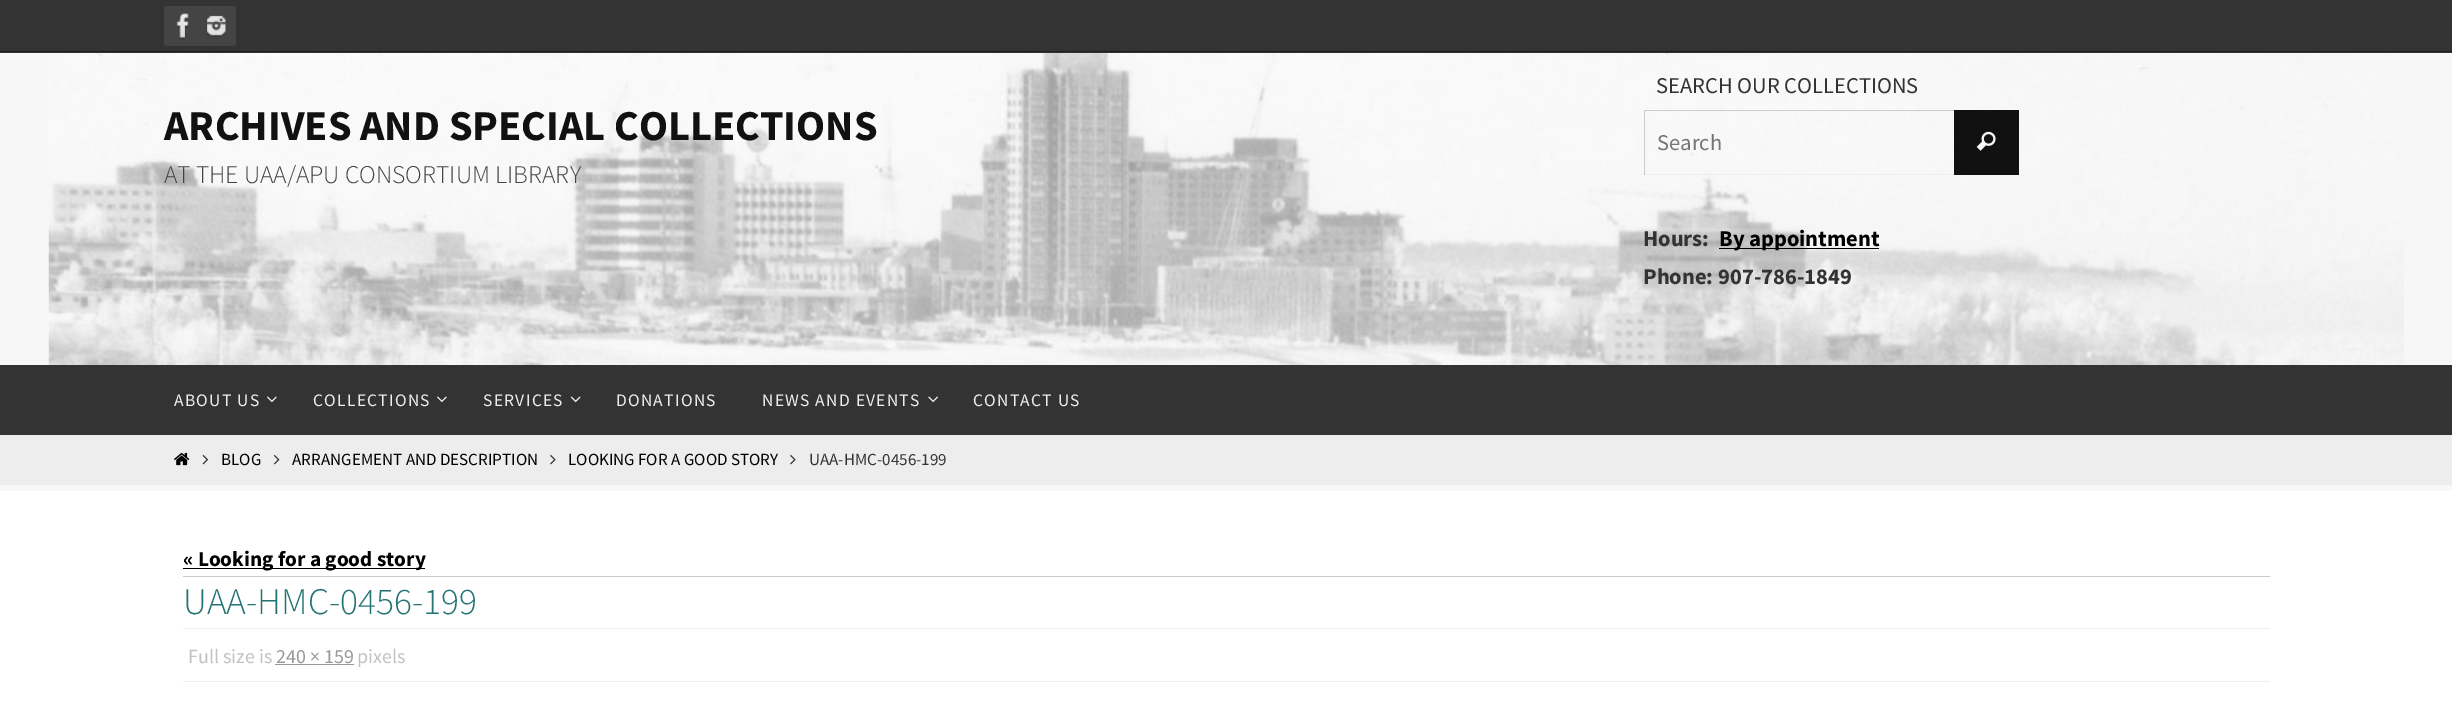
%!PS
<< /PageSize [2452 708] >> setpagedevice
/rgb { 3 { 255 div 3 1 roll } repeat setrgbcolor } def
/font { [ exch dup neg 0 0 3 -1 roll 0 0 ] selectfont } def
/roundrect { 5 dict begin { /r /h /w /y /x } { exch def } forall
  x r add y moveto x w add y 2 copy h add r arct x w add y h add x 1 index r arct
  x y h add x y r arct x y 2 copy exch w add exch r arct closepath end } def
/picture { 5 dict begin { /h /w /y /x /name } { exch def } forall
  gsave x y translate w h scale
  w h 8 [w 0 0 h 0 0] name (r) file false 3 colorimage grestore end } def
0 708 translate 1 -1 scale
4 setmiterlimit
247 247 247 rgb
0 0 2452 708 rectfill
51 51 51 rgb
0 0 2452 53 rectfill
31 31 31 rgb
0 51 2452 1 rectfill
68 68 68 rgb
164 6 40 40 2.5 roundrect fill
(img/1.rgb) 176 13 13 27 picture
196 6 40 40 2.5 roundrect fill
(img/2.rgb) 206 15 20 22 picture
(img/3.rgb) 48 53 2356 312 picture
[
  [1954 110 65 65 17 17 17]
  [1644 110 310 1 204 204 204]
  [1644 174 310 1 238 238 238]
  [1644 110 1 65 204 204 204]
] { aload pop rgb rectfill } forall
(img/4.rgb) 1976 131 20 20 picture
0 0 0 rgb
1719 248 160 1 rectfill
51 51 51 rgb
0 365 2452 70 rectfill
(img/5.rgb) 267 396 10 7 picture
(img/5.rgb) 437 396 10 7 picture
(img/6.rgb) 570 396 11 7 picture
(img/7.rgb) 928 396 10 7 picture
237 237 237 rgb
0 435 2452 50 rectfill
(img/8.rgb) 174 453 16 13 picture
(img/9.rgb) 202 455 7 10 picture
(img/10.rgb) 273 455 7 10 picture
(img/11.rgb) 550 455 6 10 picture
(img/11.rgb) 790 455 6 10 picture
[
  [0 491 2452 217 255 255 255]
  [183 576 2087 1 204 204 204]
  [183 568 242 1 0 0 0]
  [183 628 2087 1 238 238 238]
  [183 681 2087 1 238 238 238]
  [275 664 79 1 153 153 153]
] { aload pop rgb rectfill } forall
/SourceSansPro-Bold 42.5 font
17 17 17 rgb
164 140 moveto (ARCHIVES AND SPECIAL COLLECTIONS) show
/SourceSansPro-Light 25.5 font
68 68 68 rgb
164 183 moveto (AT THE UAA/APU CONSORTIUM LIBRARY) show
/SourceSansPro-Regular 22.5 font
51 51 51 rgb
1656 93 moveto (SEARCH OUR COLLECTIONS) show
117 117 117 rgb
1657 150 moveto (Search) show
/SourceSansPro-Bold 22.5 font
51 51 51 rgb
1643 246 moveto (Hours:) show
0 0 0 rgb
1719 246 moveto (By appointment) show
51 51 51 rgb
1643 284 moveto (Phone: 907-786-1849) show
/SourceSansPro-Regular 17.5 font
238 238 238 rgb
174 406 moveto 1.25 0 (ABOUT US) ashow
313 406 moveto 1.25 0 (COLLECTIONS) ashow
483 406 moveto 1.25 0 (SERVICES) ashow
616 406 moveto 1.25 0 (DONATIONS) ashow
762 406 moveto 1.25 0 (NEWS AND EVENTS) ashow
973 406 moveto 1.25 0 (CONTACT US) ashow
/SourceSansPro-Regular 17 font
0 0 0 rgb
[
  [(BLOG) 221 465]
  [(ARRANGEMENT AND DESCRIPTION) 292 465]
  [(LOOKING FOR A GOOD STORY) 568 465]
] { aload pop moveto show } forall
51 51 51 rgb
809 465 moveto (UAA-HMC-0456-199) show
/SourceSansPro-Bold 21.25 font
0 0 0 rgb
183 566 moveto (« Looking for a good story) show
/SourceSansPro-Light 37.5 font
37 116 115 rgb
183 614 moveto (UAA-HMC-0456-199) show
/SourceSansPro-Regular 20 font
193 193 193 rgb
188 663 moveto (Full size is) show
153 153 153 rgb
276 663 moveto (240 × 159) show
193 193 193 rgb
357 663 moveto (pixels) show
showpage
